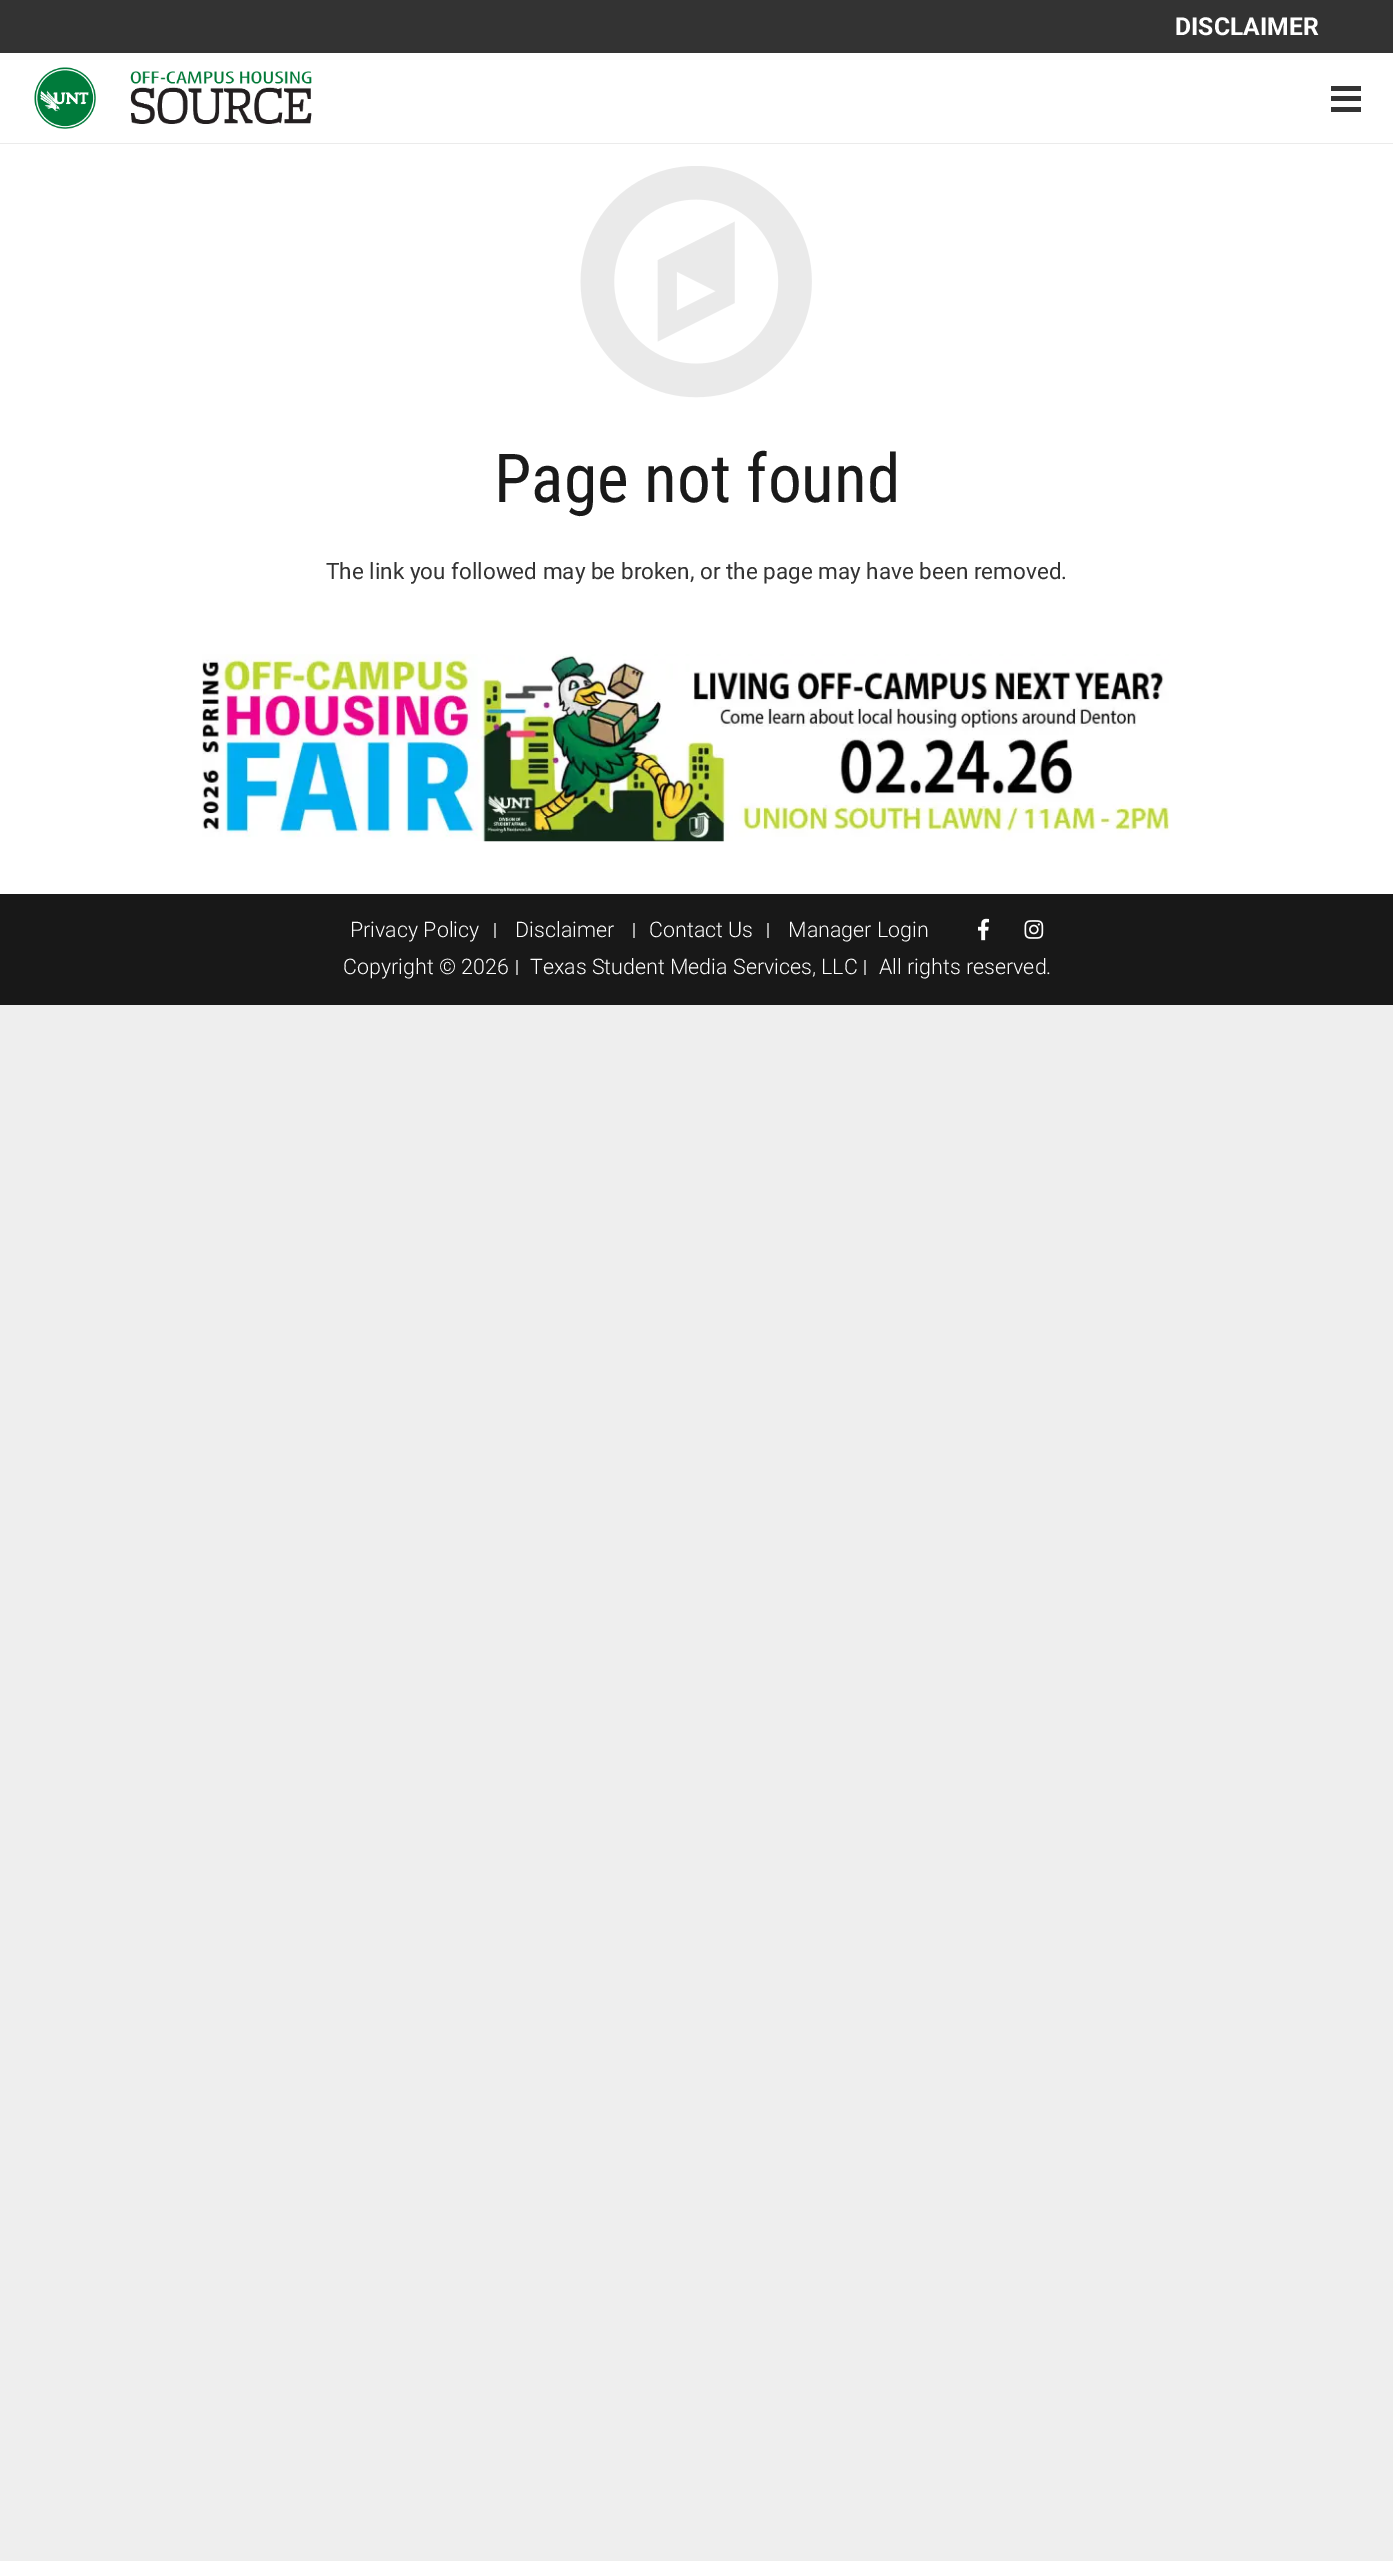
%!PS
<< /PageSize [1393 2561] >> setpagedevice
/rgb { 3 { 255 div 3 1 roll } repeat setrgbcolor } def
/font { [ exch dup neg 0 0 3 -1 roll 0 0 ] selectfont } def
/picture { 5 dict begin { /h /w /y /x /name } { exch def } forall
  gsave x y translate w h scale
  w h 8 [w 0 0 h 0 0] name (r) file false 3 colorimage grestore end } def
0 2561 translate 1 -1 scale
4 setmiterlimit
238 238 238 rgb
0 0 1393 2561 rectfill
255 255 255 rgb
0 144 1393 750 rectfill
51 51 51 rgb
0 0 1393 53 rectfill
235 235 235 rgb
0 142 moveto 0 144 lineto 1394 144 lineto 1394 54 lineto 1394 142 lineto closepath fill
255 255 255 rgb
0 53 1393 90 rectfill
(img/1.rgb) 34 67 62 62 picture
(img/2.rgb) 130 71 182 53 picture
[
  [1331 96 30 5 51 51 51]
  [1331 86 30 5 51 51 51]
  [1331 107 30 5 51 51 51]
] { aload pop rgb rectfill } forall
(img/3.rgb) 580 166 232 232 picture
(img/4.rgb) 202 654 968 188 picture
[
  [0 894 1393 111 24 24 24]
  [494 923 2 15 167 167 167]
  [633 923 2 15 167 167 167]
  [767 923 2 15 167 167 167]
] { aload pop rgb rectfill } forall
(img/5.rgb) 978 918 12 23 picture
(img/6.rgb) 1024 920 20 19 picture
516 960 2 15 rectfill
864 960 2 15 rectfill
/Roboto-Bold 24.75 font
255 255 255 rgb
1175 35 moveto (DISCLAIMER) show
/RobotoCondensed-Regular 67.5 font
26 26 26 rgb
494 502 moveto (Page not found) show
/Roboto-Regular 22.5 font
51 51 51 rgb
326 579 moveto (The link you followed may be broken, or the page may have been removed.) show
/Roboto-Light 21.4 font
255 255 255 rgb
[
  [(Privacy Policy) 350 937]
  [(Disclaimer) 515 937]
  [(Contact Us) 649 937]
  [(Manager Login) 788 937]
  [(Copyright © 2026) 343 974]
  [(Texas Student Media Services, LLC) 530 974]
  [(All rights reserved.) 879 974]
] { aload pop moveto show } forall
showpage
